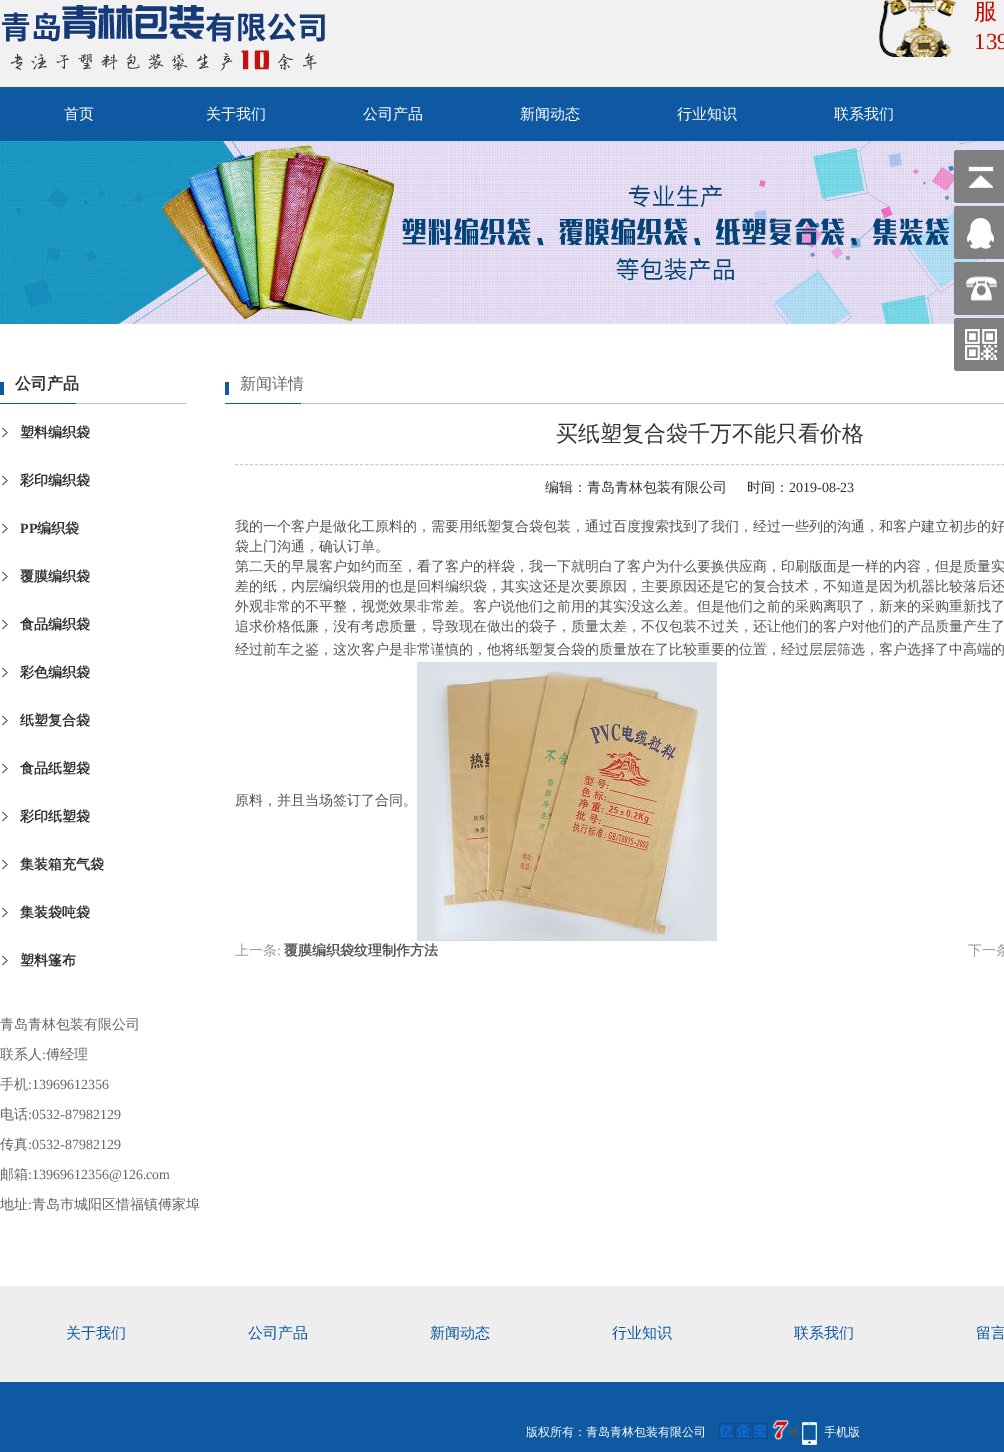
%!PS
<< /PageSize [1004 1452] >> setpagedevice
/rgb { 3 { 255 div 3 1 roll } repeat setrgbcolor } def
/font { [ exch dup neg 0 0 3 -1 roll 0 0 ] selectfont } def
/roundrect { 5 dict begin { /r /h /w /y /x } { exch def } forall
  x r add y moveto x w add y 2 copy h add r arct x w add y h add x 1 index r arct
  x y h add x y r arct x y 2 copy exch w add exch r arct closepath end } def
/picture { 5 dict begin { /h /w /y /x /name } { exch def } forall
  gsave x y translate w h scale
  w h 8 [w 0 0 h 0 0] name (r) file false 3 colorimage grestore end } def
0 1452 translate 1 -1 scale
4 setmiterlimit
255 255 255 rgb
0 0 1004 1452 rectfill
241 241 241 rgb
0 0 1004 87 rectfill
(img/1.rgb) 2 5 323 66 picture
(img/2.rgb) 879 0 77 57 picture
15 89 162 rgb
0 87 1004 54 rectfill
(img/3.rgb) 0 141 1004 183 picture
(img/4.rgb) 0 382 186 22 picture
(img/5.rgb) 2 428 6 9 picture
(img/5.rgb) 2 476 6 9 picture
(img/5.rgb) 2 524 6 9 picture
(img/5.rgb) 2 572 6 9 picture
(img/5.rgb) 2 620 6 9 picture
(img/5.rgb) 2 668 6 9 picture
(img/5.rgb) 2 716 6 9 picture
(img/5.rgb) 2 764 6 9 picture
(img/5.rgb) 2 812 6 9 picture
(img/5.rgb) 2 860 6 9 picture
(img/5.rgb) 2 908 6 9 picture
(img/5.rgb) 2 956 6 9 picture
(img/6.rgb) 225 382 779 22 picture
204 204 204 rgb
[3 2.01] 0 setdash
235 464.5 moveto 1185 464.5 lineto stroke
(img/7.rgb) 417 662 300 279 picture
15 89 162 rgb
0 1382 1004 70 rectfill
127 127 127 rgb
954 150 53 53 3 roundrect fill
(img/8.rgb) 954 150 40 53 picture
954 206 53 53 3 roundrect fill
(img/9.rgb) 954 206 40 53 picture
954 262 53 53 3 roundrect fill
(img/10.rgb) 954 262 43 53 picture
954 318 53 53 3 roundrect fill
(img/11.rgb) 954 318 43 53 picture
238 238 238 rgb
0 1286 1004 96 rectfill
(img/12.rgb) 719 1420 80 20 picture
(img/13.rgb) 802 1422 15 23 picture
/WenQuanYiZenHei-Medium 23 font
199 9 0 rgb
974 19 moveto (服) show
/LiberationSerif-Regular 23 font
974 49 moveto (139) show
/WenQuanYiZenHei-Medium 15 font
255 255 255 rgb
[
  [(首页) 64 119]
  [(关于我们) 206 119]
  [(公司产品) 363 119]
  [(新闻动态) 520 119]
  [(行业知识) 677 119]
  [(联系我们) 834 119]
] { aload pop moveto show } forall
/WenQuanYiZenHei-Bold 16 font
51 51 51 rgb
15 389 moveto (公司产品) show
/WenQuanYiZenHei-Bold 14 font
20 437 moveto (塑料编织袋) show
20 485 moveto (彩印编织袋) show
/LiberationSerif-Bold 14 font
20 533 moveto (PP) show
/WenQuanYiZenHei-Bold 14 font
[
  [(编织袋) 37 533]
  [(覆膜编织袋) 20 581]
  [(食品编织袋) 20 629]
  [(彩色编织袋) 20 677]
  [(纸塑复合袋) 20 725]
  [(食品纸塑袋) 20 773]
  [(彩印纸塑袋) 20 821]
  [(集装箱充气袋) 20 869]
  [(集装袋吨袋) 20 917]
  [(塑料篷布) 20 965]
] { aload pop moveto show } forall
/WenQuanYiZenHei-Medium 14 font
102 102 102 rgb
0 1029 moveto (青岛青林包装有限公司) show
0 1059 moveto (联系人) show
/LiberationSerif-Regular 14 font
42 1059 moveto (:) show
/WenQuanYiZenHei-Medium 14 font
46 1059 moveto (傅经理) show
0 1089 moveto (手机) show
/LiberationSerif-Regular 14 font
28 1089 moveto (:13969612356) show
/WenQuanYiZenHei-Medium 14 font
0 1119 moveto (电话) show
/LiberationSerif-Regular 14 font
28 1119 moveto (:0532-87982129) show
/WenQuanYiZenHei-Medium 14 font
0 1149 moveto (传真) show
/LiberationSerif-Regular 14 font
28 1149 moveto (:0532-87982129) show
/WenQuanYiZenHei-Medium 14 font
0 1179 moveto (邮箱) show
/LiberationSerif-Regular 14 font
28 1179 moveto (:13969612356@126.com) show
/WenQuanYiZenHei-Medium 14 font
0 1209 moveto (地址) show
/LiberationSerif-Regular 14 font
28 1209 moveto (:) show
/WenQuanYiZenHei-Medium 14 font
32 1209 moveto (青岛市城阳区惜福镇傅家埠) show
/WenQuanYiZenHei-Medium 16 font
240 389 moveto (新闻详情) show
/WenQuanYiZenHei-Medium 22 font
51 51 51 rgb
556 441 moveto (买纸塑复合袋千万不能只看价格) show
/WenQuanYiZenHei-Medium 14 font
545 492 moveto (编辑：青岛青林包装有限公司) show
747 492 moveto (时间：) show
/LiberationSerif-Regular 14 font
789 492 moveto (2019-08-23) show
/WenQuanYiZenHei-Medium 14 font
85 85 85 rgb
[
  [(我的一个客户是做化工原料的，需要用纸塑复合袋包装，通过百度搜索找到了我们，经过一些列的沟通，和客户建立初步的好) 235 531]
  [(袋上门沟通，确认订单。) 235 551]
  [(第二天的早晨客户如约而至，看了客户的样袋，我一下就明白了客户为什么要换供应商，印刷版面是一样的内容，但是质量实) 235 571]
  [(差的纸，内层编织袋用的也是回料编织袋，其实这还是次要原因，主要原因还是它的复合技术，不知道是因为机器比较落后还) 235 591]
  [(外观非常的不平整，视觉效果非常差。客户说他们之前用的其实没这么差。但是他们之前的采购离职了，新来的采购重新找了) 235 611]
  [(追求价格低廉，没有考虑质量，导致现在做出的袋子，质量太差，不仅包装不过关，还让他们的客户对他们的产品质量产生了) 235 631]
  [(经过前车之鉴，这次客户是非常谨慎的，他将纸塑复合袋的质量放在了比较重要的位置，经过层层筛选，客户选择了中高端的) 235 654]
  [(原料，并且当场签订了合同。) 235 805]
] { aload pop moveto show } forall
153 153 153 rgb
235 955 moveto (上一条) show
/LiberationSerif-Regular 14 font
277 955 moveto (:) show
/WenQuanYiZenHei-Bold 14 font
85 85 85 rgb
284 955 moveto (覆膜编织袋纹理制作方法) show
/WenQuanYiZenHei-Medium 14 font
153 153 153 rgb
968 955 moveto (下一条) show
/WenQuanYiZenHei-Medium 15 font
15 89 162 rgb
[
  [(关于我们) 66 1338]
  [(公司产品) 248 1338]
  [(新闻动态) 430 1338]
  [(行业知识) 612 1338]
  [(联系我们) 794 1338]
  [(留言) 976 1338]
] { aload pop moveto show } forall
/WenQuanYiZenHei-Medium 12 font
255 255 255 rgb
526 1436 moveto (版权所有：青岛青林包装有限公司) show
824 1436 moveto (手机版) show
showpage
